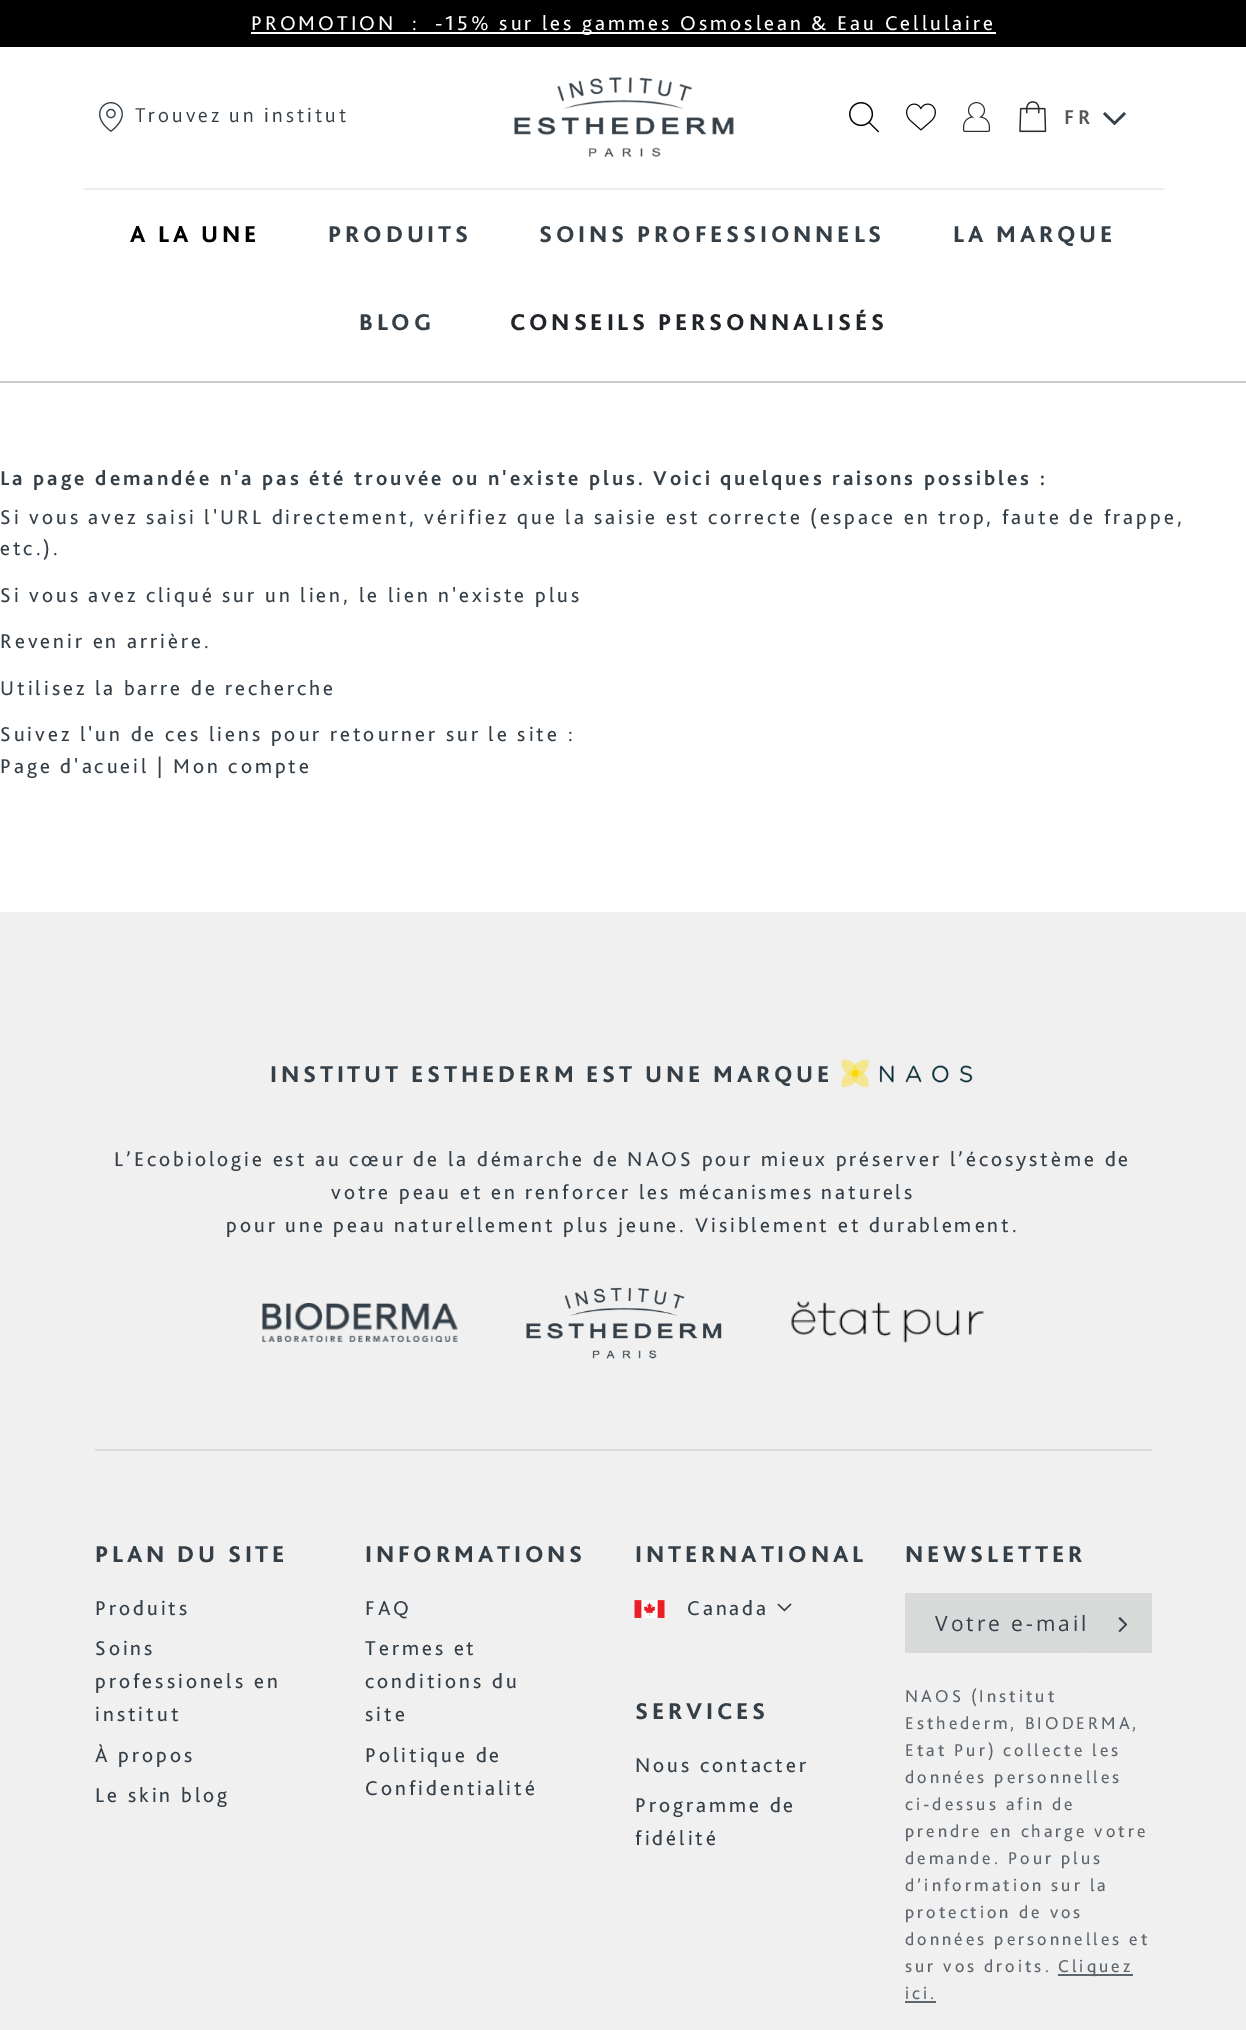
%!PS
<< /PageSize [1246 2030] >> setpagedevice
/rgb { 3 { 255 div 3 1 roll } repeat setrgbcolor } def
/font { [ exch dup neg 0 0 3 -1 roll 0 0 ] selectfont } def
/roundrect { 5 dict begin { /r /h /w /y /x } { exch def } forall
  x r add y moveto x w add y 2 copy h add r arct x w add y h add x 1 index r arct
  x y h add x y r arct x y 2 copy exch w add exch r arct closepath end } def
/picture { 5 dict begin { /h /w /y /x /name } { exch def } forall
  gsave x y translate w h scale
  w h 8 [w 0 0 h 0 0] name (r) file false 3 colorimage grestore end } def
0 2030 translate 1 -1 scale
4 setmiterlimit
255 255 255 rgb
0 0 1246 2030 rectfill
[
  [0 381 1246 2 204 204 204]
  [0 0 1246 47 0 0 0]
  [251 32 745 2 255 255 255]
] { aload pop rgb rectfill } forall
(img/1.rgb) 99 102 24 30 picture
(img/2.rgb) 514 77 220 80 picture
(img/3.rgb) 849 102 30 31 picture
(img/4.rgb) 906 103 30 28 picture
(img/5.rgb) 963 102 27 30 picture
(img/6.rgb) 1019 101 28 32 picture
52 63 72 rgb
1114.5 121.5 moveto 1105 112 lineto 1103 114 lineto 1114.5 125 lineto 1126 114 lineto 1124 112 lineto closepath fill
235 236 235 rgb
84 188 1080 2 rectfill
240 240 240 rgb
0 912 1246 1118 rectfill
(img/7.rgb) 841 1059 132 29 picture
(img/8.rgb) 262 1303 196 39 picture
(img/9.rgb) 526 1287 196 72 picture
(img/10.rgb) 791 1301 193 42 picture
218 219 220 rgb
95 1449 1057 2 rectfill
(img/11.rgb) 634 1600 31 18 picture
(img/12.rgb) 777 1603 15 9 picture
216 217 217 rgb
905 1593 183 60 1.5 roundrect fill
1088 1593 64 60 rectfill
52 63 72 rgb
1118.5 1618.5 moveto 1120 1617 lineto 1127 1624.5 lineto 1126 1625.5 lineto closepath fill
1118.5 1631 moveto 1126 1623.5 lineto 1127 1624.5 lineto 1120 1632 lineto closepath fill
93 101 109 rgb
1058 1974 75 2 rectfill
905 2001 31 2 rectfill
/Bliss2-Regular 21 font
255 255 255 rgb
251 30 moveto 3 0 (PROMOTION  :  -15% sur les gammes Osmoslean & Eau Cellulaire) ashow
/Bliss2-Light 21 font
52 63 72 rgb
135 122 moveto 3 0 (Trouvez un institut) ashow
/Bliss2-Bold 21 font
87 87 87 rgb
1064 124 moveto 3.75 0 (FR) ashow
/Bliss2-ExtraBold 24 font
0 0 0 rgb
130 242 moveto 3.75 0 (A LA UNE) ashow
52 63 72 rgb
328 242 moveto 3.75 0 (PRODUITS) ashow
539 242 moveto 3.75 0 (SOINS PROFESSIONNELS) ashow
953 242 moveto 3.75 0 (LA MARQUE) ashow
359 330 moveto 3.75 0 (BLOG) ashow
33 37 41 rgb
510 330 moveto 3.75 0 (CONSEILS PERSONNALISÉS) ashow
/Bliss2-Bold 21 font
52 63 72 rgb
0 485 moveto 3 0 (La page demandée n'a pas été trouvée ou n'existe plus. Voici quelques raisons possibles :) ashow
/Bliss2-Regular 21 font
0 524 moveto 3 0 (Si vous avez saisi l'URL directement, vérifiez que la saisie est correcte \(espace en trop, faute de frappe,) ashow
0 555 moveto 3 0 (etc.\).) ashow
0 602 moveto 3 0 (Si vous avez cliqué sur un lien, le lien n'existe plus) ashow
0 648 moveto 3 0 (Revenir en arrière.) ashow
0 695 moveto 3 0 (Utilisez la barre de recherche) ashow
0 741 moveto 3 0 (Suivez l'un de ces liens pour retourner sur le site :) ashow
0 773 moveto 3 0 (Page d'acueil | Mon compte) ashow
/Bliss2-ExtraBold 24 font
270 1082 moveto 3.75 0 (INSTITUT ESTHEDERM EST UNE MARQUE) ashow
/Bliss2-Regular 21 font
114 1166 moveto 3 0 (L’Ecobiologie est au cœur de la démarche de NAOS pour mieux préserver l’écosystème de) ashow
331 1199 moveto 3 0 (votre peau et en renforcer les mécanismes naturels) ashow
226 1232 moveto 3 0 (pour une peau naturellement plus jeune. Visiblement et durablement.) ashow
/Bliss2-ExtraBold 24 font
95 1562 moveto 3.75 0 (PLAN DU SITE) ashow
/Bliss2-Regular 21 font
95 1615 moveto 3 0 (Produits) ashow
95 1655 moveto 3 0 (Soins) ashow
95 1688 moveto 3 0 (professionels en) ashow
95 1721 moveto 3 0 (institut) ashow
95 1762 moveto 3 0 (À propos) ashow
95 1802 moveto 3 0 (Le skin blog) ashow
/Bliss2-ExtraBold 24 font
365 1562 moveto 3.75 0 (INFORMATIONS) ashow
/Bliss2-Regular 21 font
365 1615 moveto 3 0 (FAQ) ashow
365 1655 moveto 3 0 (Termes et) ashow
365 1688 moveto 3 0 (conditions du) ashow
365 1721 moveto 3 0 (site) ashow
365 1762 moveto 3 0 (Politique de) ashow
365 1795 moveto 3 0 (Confidentialité) ashow
/Bliss2-ExtraBold 24 font
635 1562 moveto 3.75 0 (INTERNATIONAL) ashow
/Bliss2-Regular 21 font
687 1615 moveto 3 0 (Canada) ashow
/Bliss2-ExtraBold 24 font
635 1719 moveto 3.75 0 (SERVICES) ashow
/Bliss2-Regular 21 font
635 1772 moveto 3 0 (Nous contacter) ashow
635 1812 moveto 3 0 (Programme de) ashow
635 1845 moveto 3 0 (fidélité) ashow
/Bliss2-ExtraBold 24 font
905 1562 moveto 3.75 0 (NEWSLETTER) ashow
/OpenSans-Regular 21 font
935 1631 moveto 3 0 (Votre e-mail) ashow
/Bliss2-Regular 18 font
93 101 109 rgb
905 1702 moveto 3 0 (NAOS \(Institut) ashow
905 1729 moveto 3 0 (Esthederm, BIODERMA,) ashow
905 1756 moveto 3 0 (Etat Pur\) collecte les) ashow
905 1783 moveto 3 0 (données personnelles) ashow
905 1810 moveto 3 0 (ci-dessus afin de) ashow
905 1837 moveto 3 0 (prendre en charge votre) ashow
905 1864 moveto 3 0 (demande. Pour plus) ashow
905 1891 moveto 3 0 (d’information sur la) ashow
905 1918 moveto 3 0 (protection de vos) ashow
905 1945 moveto 3 0 (données personnelles et) ashow
905 1972 moveto 3 0 (sur vos droits.) ashow
1058 1972 moveto 3 0 (Cliquez) ashow
905 1999 moveto 3 0 (ici.) ashow
showpage
